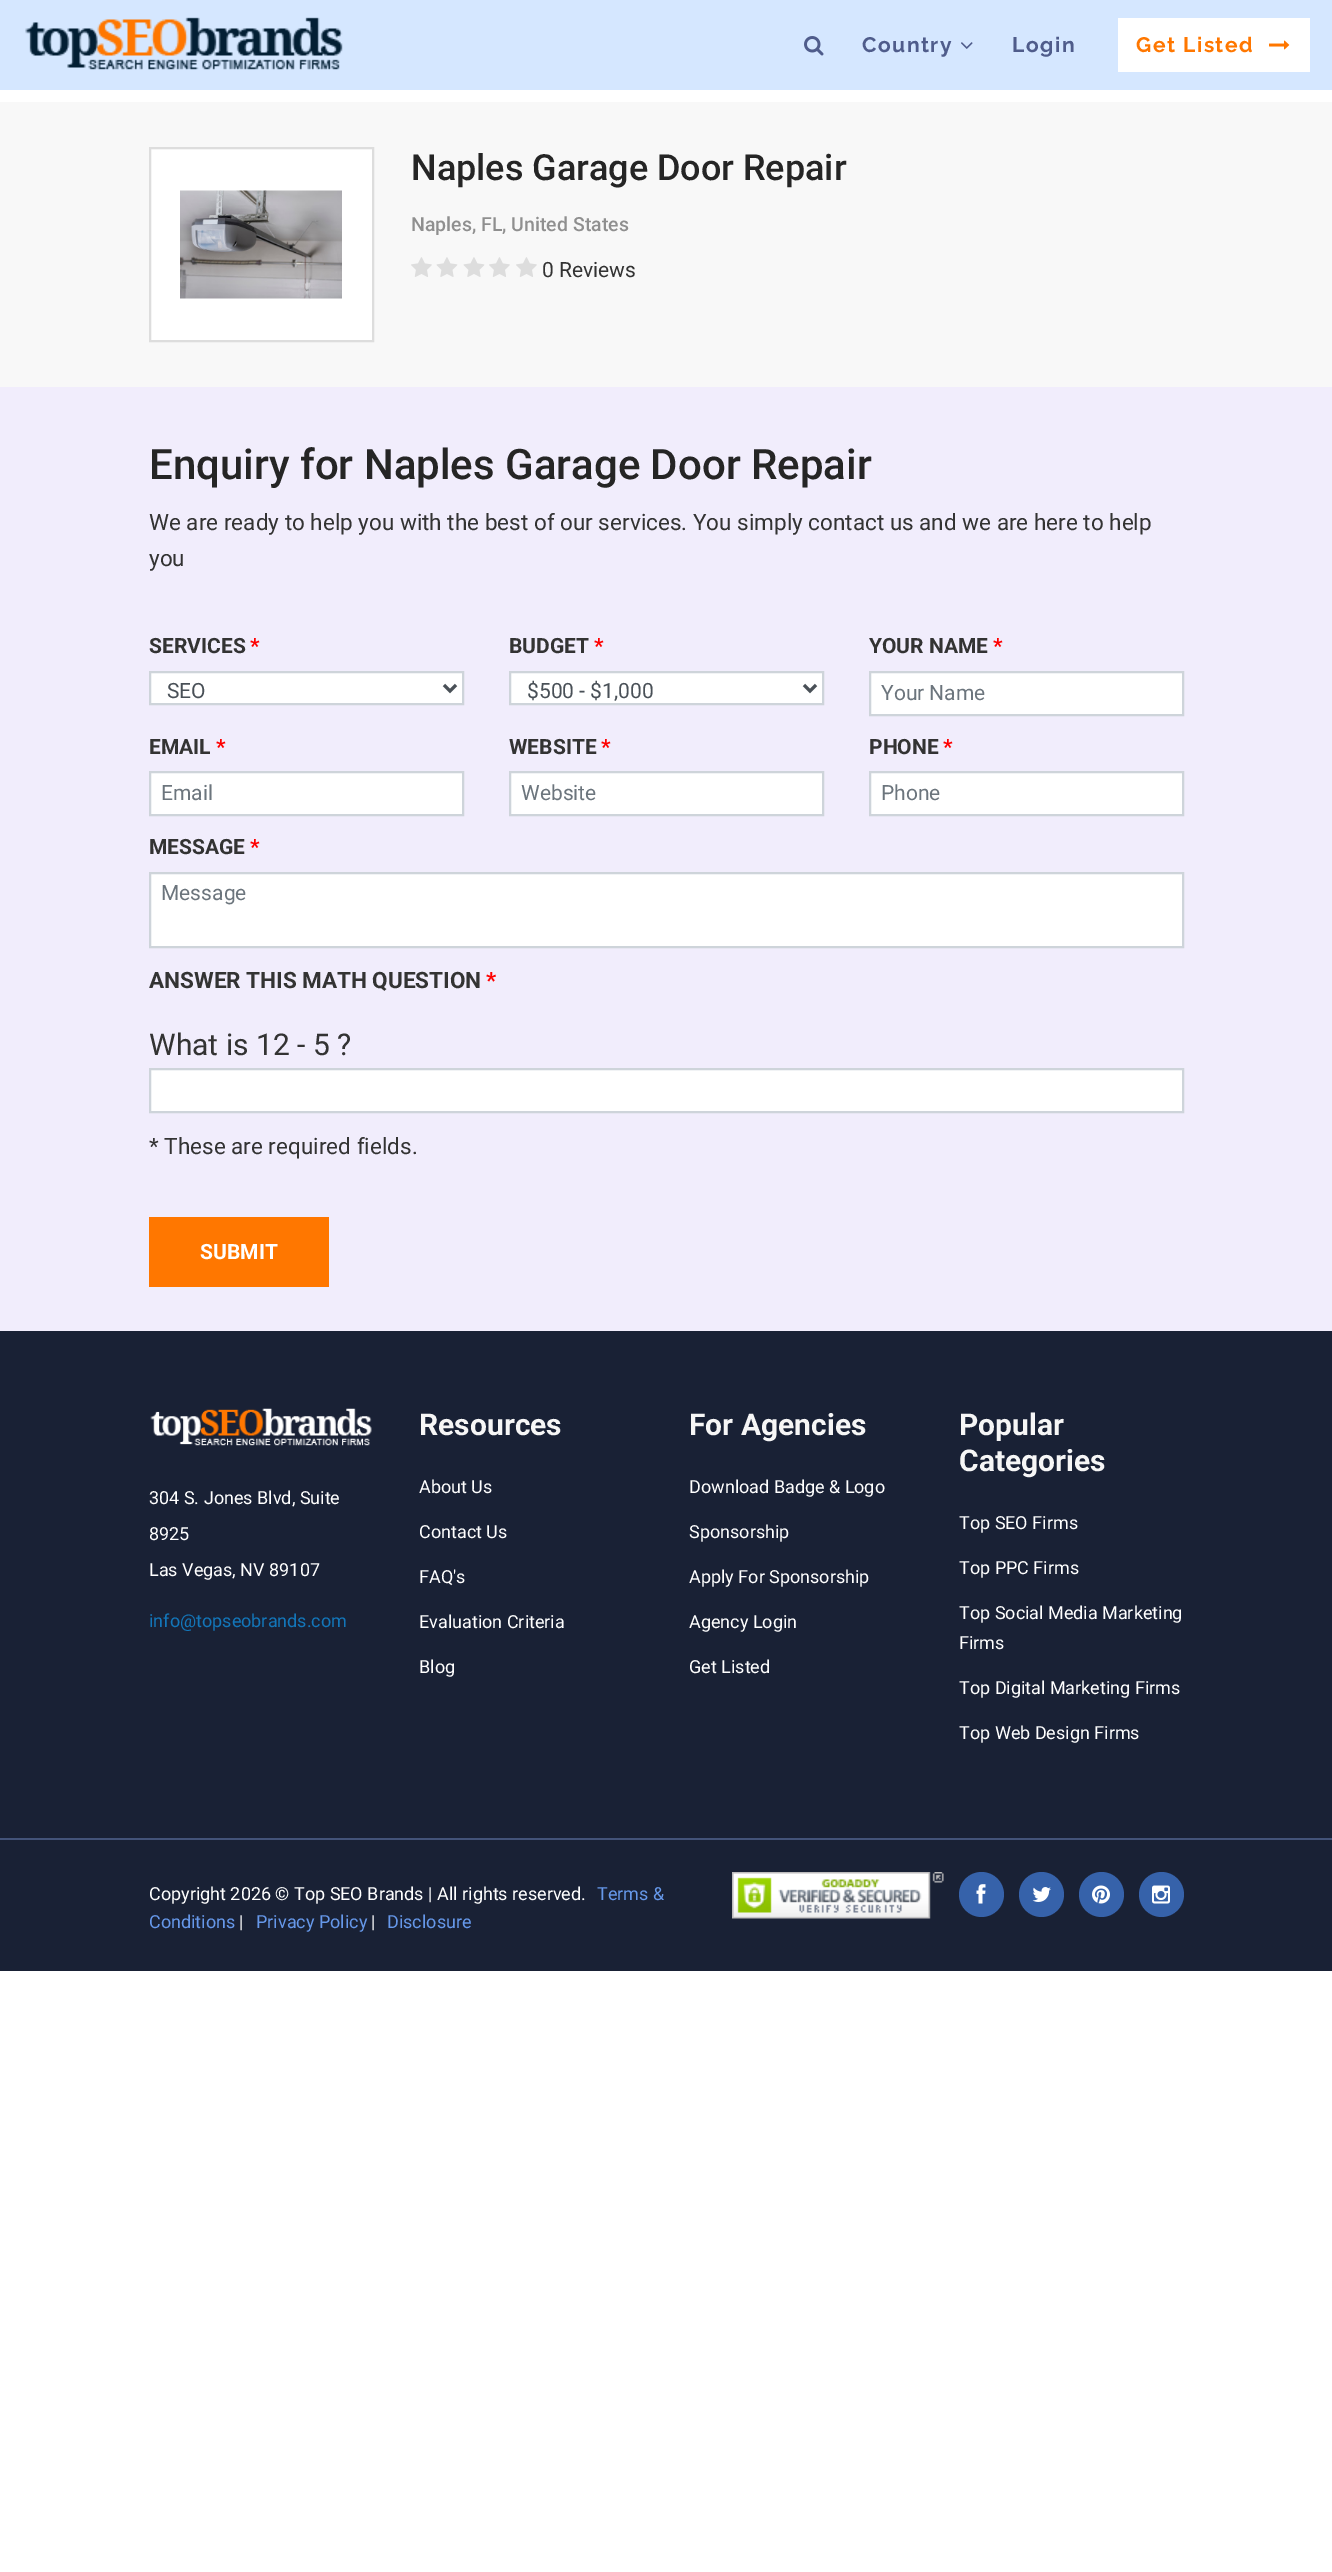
%!PS
<< /PageSize [1332 2572] >> setpagedevice
/rgb { 3 { 255 div 3 1 roll } repeat setrgbcolor } def
/font { [ exch dup neg 0 0 3 -1 roll 0 0 ] selectfont } def
/circle { newpath 0 360 arc closepath } def
/picture { 5 dict begin { /h /w /y /x /name } { exch def } forall
  gsave x y translate w h scale
  w h 8 [w 0 0 h 0 0] name (r) file false 3 colorimage grestore end } def
0 2572 translate 1 -1 scale
4 setmiterlimit
255 255 255 rgb
0 0 1332 2572 rectfill
213 231 255 rgb
0 0 1332 90 rectfill
(img/1.rgb) 25 17 318 53 picture
(img/2.rgb) 804 36 20 20 picture
(img/3.rgb) 961 42 12 7 picture
255 255 255 rgb
1118 18 192 54 rectfill
(img/4.rgb) 1269 40 21 10 picture
241 237 252 rgb
0 387 1332 944 rectfill
248 248 248 rgb
0 102 1332 285 rectfill
255 255 255 rgb
150 148 moveto 373 148 lineto 373 341 lineto 150 341 lineto closepath gsave fill grestore
221 221 221 rgb
2 setlinewidth
stroke
(img/5.rgb) 180 190 162 109 picture
(img/6.rgb) 411 257 21 20 picture
(img/7.rgb) 436 257 22 20 picture
(img/7.rgb) 463 257 22 20 picture
(img/6.rgb) 489 257 21 20 picture
(img/6.rgb) 516 257 21 20 picture
255 255 255 rgb
150 672 moveto 463 672 lineto 463 704 lineto 150 704 lineto closepath gsave fill grestore
206 212 218 rgb
stroke
73 80 87 rgb
3 setlinewidth
444 685 moveto 450 691 lineto 456 685 lineto stroke
255 255 255 rgb
510 672 moveto 823 672 lineto 823 704 lineto 510 704 lineto closepath gsave fill grestore
206 212 218 rgb
2 setlinewidth
stroke
73 80 87 rgb
3 setlinewidth
804 685 moveto 810 691 lineto 816 685 lineto stroke
255 255 255 rgb
870 672 moveto 1183 672 lineto 1183 715 lineto 870 715 lineto closepath gsave fill grestore
206 212 218 rgb
2 setlinewidth
stroke
255 255 255 rgb
150 772 moveto 463 772 lineto 463 815 lineto 150 815 lineto closepath gsave fill grestore
206 212 218 rgb
stroke
255 255 255 rgb
510 772 moveto 823 772 lineto 823 815 lineto 510 815 lineto closepath gsave fill grestore
206 212 218 rgb
stroke
255 255 255 rgb
870 772 moveto 1183 772 lineto 1183 815 lineto 870 815 lineto closepath gsave fill grestore
206 212 218 rgb
stroke
255 255 255 rgb
150 873 moveto 1183 873 lineto 1183 947 lineto 150 947 lineto closepath gsave fill grestore
206 212 218 rgb
stroke
255 255 255 rgb
150 1069 moveto 1183 1069 lineto 1183 1112 lineto 150 1112 lineto closepath gsave fill grestore
206 212 218 rgb
stroke
255 119 0 rgb
149 1217 180 70 rectfill
25 33 53 rgb
0 1331 1332 507 rectfill
(img/8.rgb) 150 1408 222 38 picture
0 1840 1332 131 rectfill
67 83 121 rgb
0 1838 1332 2 rectfill
(img/9.rgb) 732 1872 212 47 picture
54 98 170 rgb
981.5 1894.5 22.5 circle fill
(img/10.rgb) 976 1884 10 20 picture
1041.5 1894.5 22.5 circle fill
(img/11.rgb) 1032 1887 19 15 picture
1101.5 1894.5 22.5 circle fill
(img/12.rgb) 1092 1885 18 19 picture
1161.5 1894.5 22.5 circle fill
(img/13.rgb) 1152 1885 18 19 picture
/Raleway-Thin 21 font
79 92 139 rgb
862 52 moveto 1.5 0 (Country) ashow
1012 52 moveto 1.5 0 (Login) ashow
255 119 0 rgb
1136 52 moveto 1.5 0 (Get Listed) ashow
/Roboto-Medium 36 font
37 37 37 rgb
411 180 moveto (Naples Garage Door Repair) show
/Roboto-Medium 19.5 font
143 143 143 rgb
411 231 moveto (Naples, FL, United States) show
/Roboto-Regular 21 font
51 51 51 rgb
542 277 moveto (0 Reviews) show
/Roboto-Medium 42 font
37 37 37 rgb
149 479 moveto (Enquiry for Naples Garage Door Repair) show
/Roboto-Regular 22.5 font
51 51 51 rgb
149 530 moveto (We are ready to help you with the best of our services. You simply contact us and we are here to help) show
149 566 moveto (you) show
/Roboto-Bold 21 font
149 653 moveto (SERVICES) show
255 0 0 rgb
250 653 moveto (*) show
/Roboto-Regular 21 font
73 80 87 rgb
167 698 moveto (SEO) show
/Roboto-Bold 21 font
51 51 51 rgb
509 653 moveto (BUDGET) show
255 0 0 rgb
594 653 moveto (*) show
/Roboto-Regular 21 font
73 80 87 rgb
527 698 moveto ($500 - $1,000) show
/Roboto-Bold 21 font
51 51 51 rgb
869 653 moveto (YOUR NAME) show
255 0 0 rgb
993 653 moveto (*) show
/Roboto-Regular 21 font
108 117 125 rgb
881 700 moveto (Your Name) show
/Roboto-Bold 21 font
51 51 51 rgb
149 754 moveto (EMAIL) show
255 0 0 rgb
216 754 moveto (*) show
/Roboto-Regular 21 font
108 117 125 rgb
161 800 moveto (Email) show
/Roboto-Bold 21 font
51 51 51 rgb
509 754 moveto (WEBSITE) show
255 0 0 rgb
601 754 moveto (*) show
/Roboto-Regular 21 font
108 117 125 rgb
521 800 moveto (Website) show
/Roboto-Bold 21 font
51 51 51 rgb
869 754 moveto (PHONE) show
255 0 0 rgb
943 754 moveto (*) show
/Roboto-Regular 21 font
108 117 125 rgb
881 800 moveto (Phone) show
/Roboto-Bold 21 font
51 51 51 rgb
149 854 moveto (MESSAGE) show
255 0 0 rgb
250 854 moveto (*) show
/Roboto-Regular 21 font
108 117 125 rgb
161 900 moveto (Message) show
/Roboto-Bold 22.5 font
51 51 51 rgb
149 988 moveto (ANSWER THIS MATH QUESTION) show
255 0 0 rgb
486 988 moveto (*) show
/Roboto-Regular 30 font
51 51 51 rgb
149 1055 moveto (What is 12 - 5 ?) show
/Roboto-Regular 22.5 font
149 1154 moveto (* These are required fields.) show
/Roboto-Bold 21 font
255 255 255 rgb
200 1259 moveto (SUBMIT) show
/Roboto-Regular 18 font
[
  [(304 S. Jones Blvd, Suite) 149 1504]
  [(8925) 149 1540]
  [(Las Vegas, NV 89107) 149 1576]
] { aload pop moveto show } forall
19 118 185 rgb
149 1627 moveto (info@topseobrands.com) show
/Roboto-Bold 30 font
246 246 246 rgb
419 1435 moveto (Resources) show
/Roboto-Regular 18 font
255 255 255 rgb
[
  [(About Us) 419 1493]
  [(Contact Us) 419 1538]
  [(FAQ's) 419 1583]
  [(Evaluation Criteria) 419 1628]
  [(Blog) 419 1673]
] { aload pop moveto show } forall
/Roboto-Bold 30 font
246 246 246 rgb
689 1435 moveto (For Agencies) show
/Roboto-Regular 18 font
255 255 255 rgb
[
  [(Download Badge & Logo) 689 1493]
  [(Sponsorship) 689 1538]
  [(Apply For Sponsorship) 689 1583]
  [(Agency Login) 689 1628]
  [(Get Listed) 689 1673]
] { aload pop moveto show } forall
/Roboto-Bold 30 font
246 246 246 rgb
959 1435 moveto (Popular) show
959 1471 moveto (Categories) show
/Roboto-Regular 18 font
255 255 255 rgb
[
  [(Top SEO Firms) 959 1529]
  [(Top PPC Firms) 959 1574]
  [(Top Social Media Marketing) 959 1619]
  [(Firms) 959 1649]
  [(Top Digital Marketing Firms) 959 1694]
  [(Top Web Design Firms) 959 1739]
  [(Copyright 2026 © Top SEO Brands | All rights reserved.) 149 1900]
] { aload pop moveto show } forall
102 152 234 rgb
597 1900 moveto (Terms &) show
149 1928 moveto (Conditions) show
255 255 255 rgb
239 1928 moveto (|) show
102 152 234 rgb
256 1928 moveto (Privacy Policy) show
255 255 255 rgb
371 1928 moveto (|) show
102 152 234 rgb
387 1928 moveto (Disclosure) show
showpage
